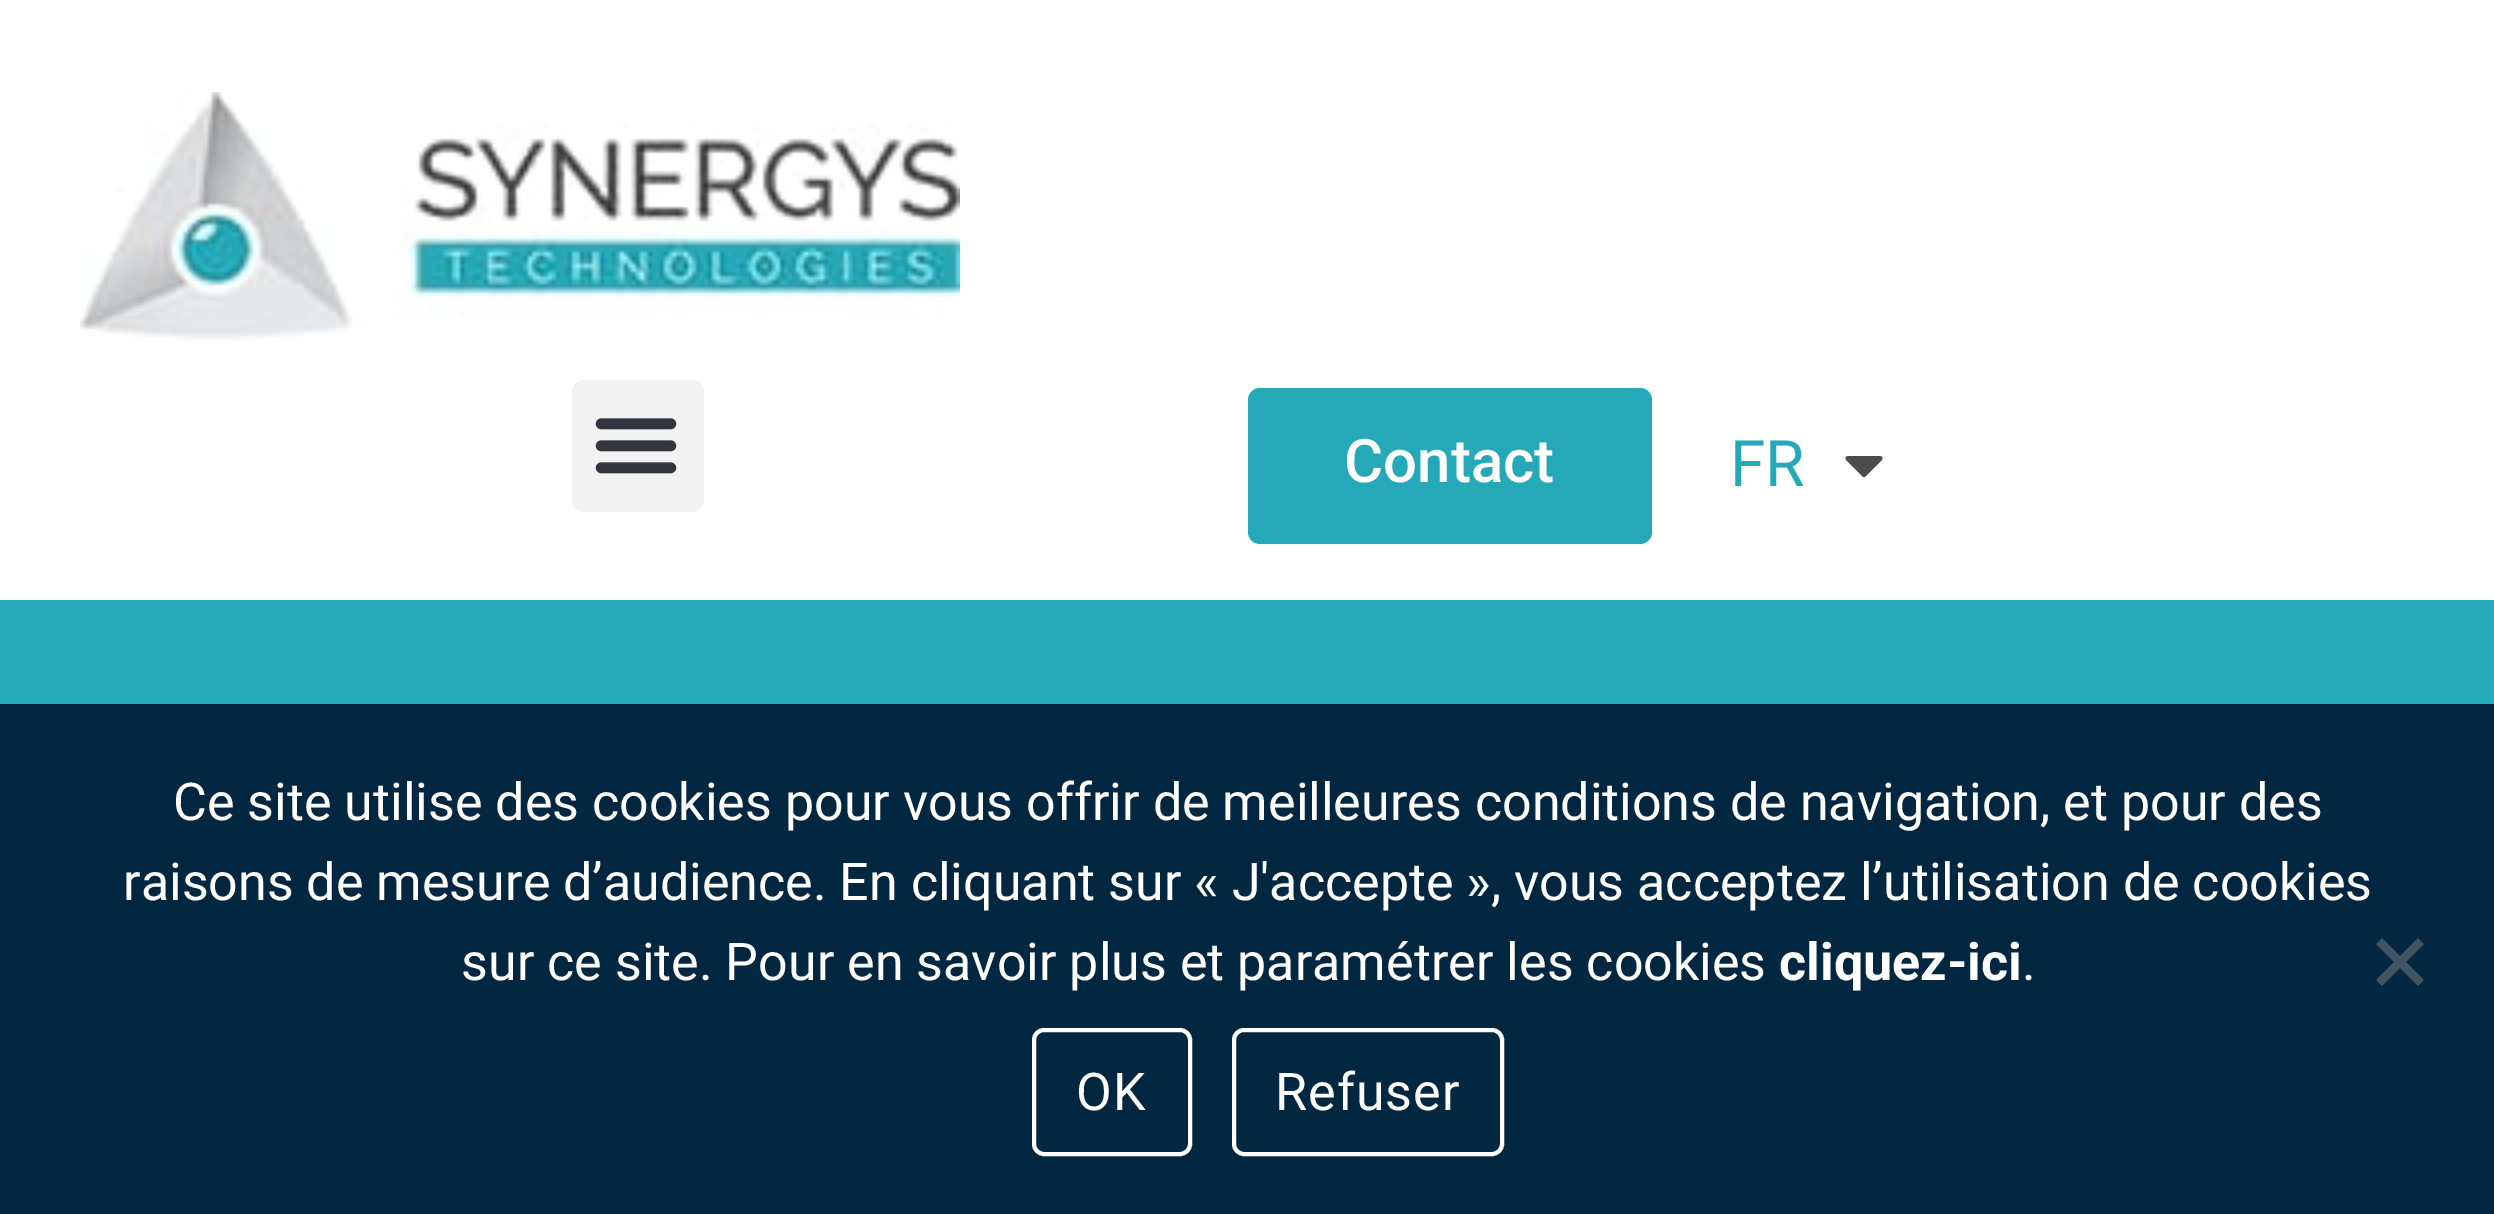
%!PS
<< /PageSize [2494 1214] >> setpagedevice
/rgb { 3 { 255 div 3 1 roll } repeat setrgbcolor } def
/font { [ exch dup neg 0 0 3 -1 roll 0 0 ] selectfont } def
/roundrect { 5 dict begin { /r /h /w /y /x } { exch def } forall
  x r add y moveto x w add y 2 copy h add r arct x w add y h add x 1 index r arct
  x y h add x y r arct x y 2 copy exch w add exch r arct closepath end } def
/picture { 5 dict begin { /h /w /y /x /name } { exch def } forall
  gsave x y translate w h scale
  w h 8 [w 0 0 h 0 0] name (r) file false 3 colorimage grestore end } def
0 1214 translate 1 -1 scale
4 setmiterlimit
255 255 255 rgb
0 0 2494 1214 rectfill
(img/1.rgb) 80 92 880 248 picture
242 242 242 rgb
572 380 132 132 12 roundrect fill
(img/2.rgb) 595 418 82 56 picture
37 169 184 rgb
1248 388 404 156 12 roundrect fill
(img/3.rgb) 1845 456 38 22 picture
0 600 2494 104 rectfill
3 38 65 rgb
0 704 2494 510 rectfill
66 83 97 rgb
2418 938 moveto 2424 944 lineto 2382 986 lineto 2376 980 lineto closepath fill
2376 944 moveto 2382 938 lineto 2424 980 lineto 2418 986 lineto closepath fill
255 255 255 rgb
4 setlinewidth
1034 1030 156 124 10 roundrect stroke
1234 1030 268 124 10 roundrect stroke
/Roboto-Medium 60 font
1344 482 moveto (Contact) show
/Roboto-Regular 64 font
37 169 184 rgb
1730 486 moveto (FR) show
/Roboto-Regular 52 font
255 255 255 rgb
[
  [(Ce site utilise des cookies pour vous offrir de meilleures conditions de navigation, et pour des) 173 820]
  [(raisons de mesure d’audience. En cliquant sur « J'accepte », vous acceptez l’utilisation de cookies) 123 900]
  [(sur ce site. Pour en savoir plus et paramétrer les cookies) 461 980]
] { aload pop moveto show } forall
/Roboto-Bold 52 font
1779 980 moveto (cliquez-ici) show
/Roboto-Regular 52 font
2022 980 moveto (.) show
1076 1110 moveto 1 0 (OK) ashow
1275 1110 moveto 1 0 (Refuser) ashow
showpage
